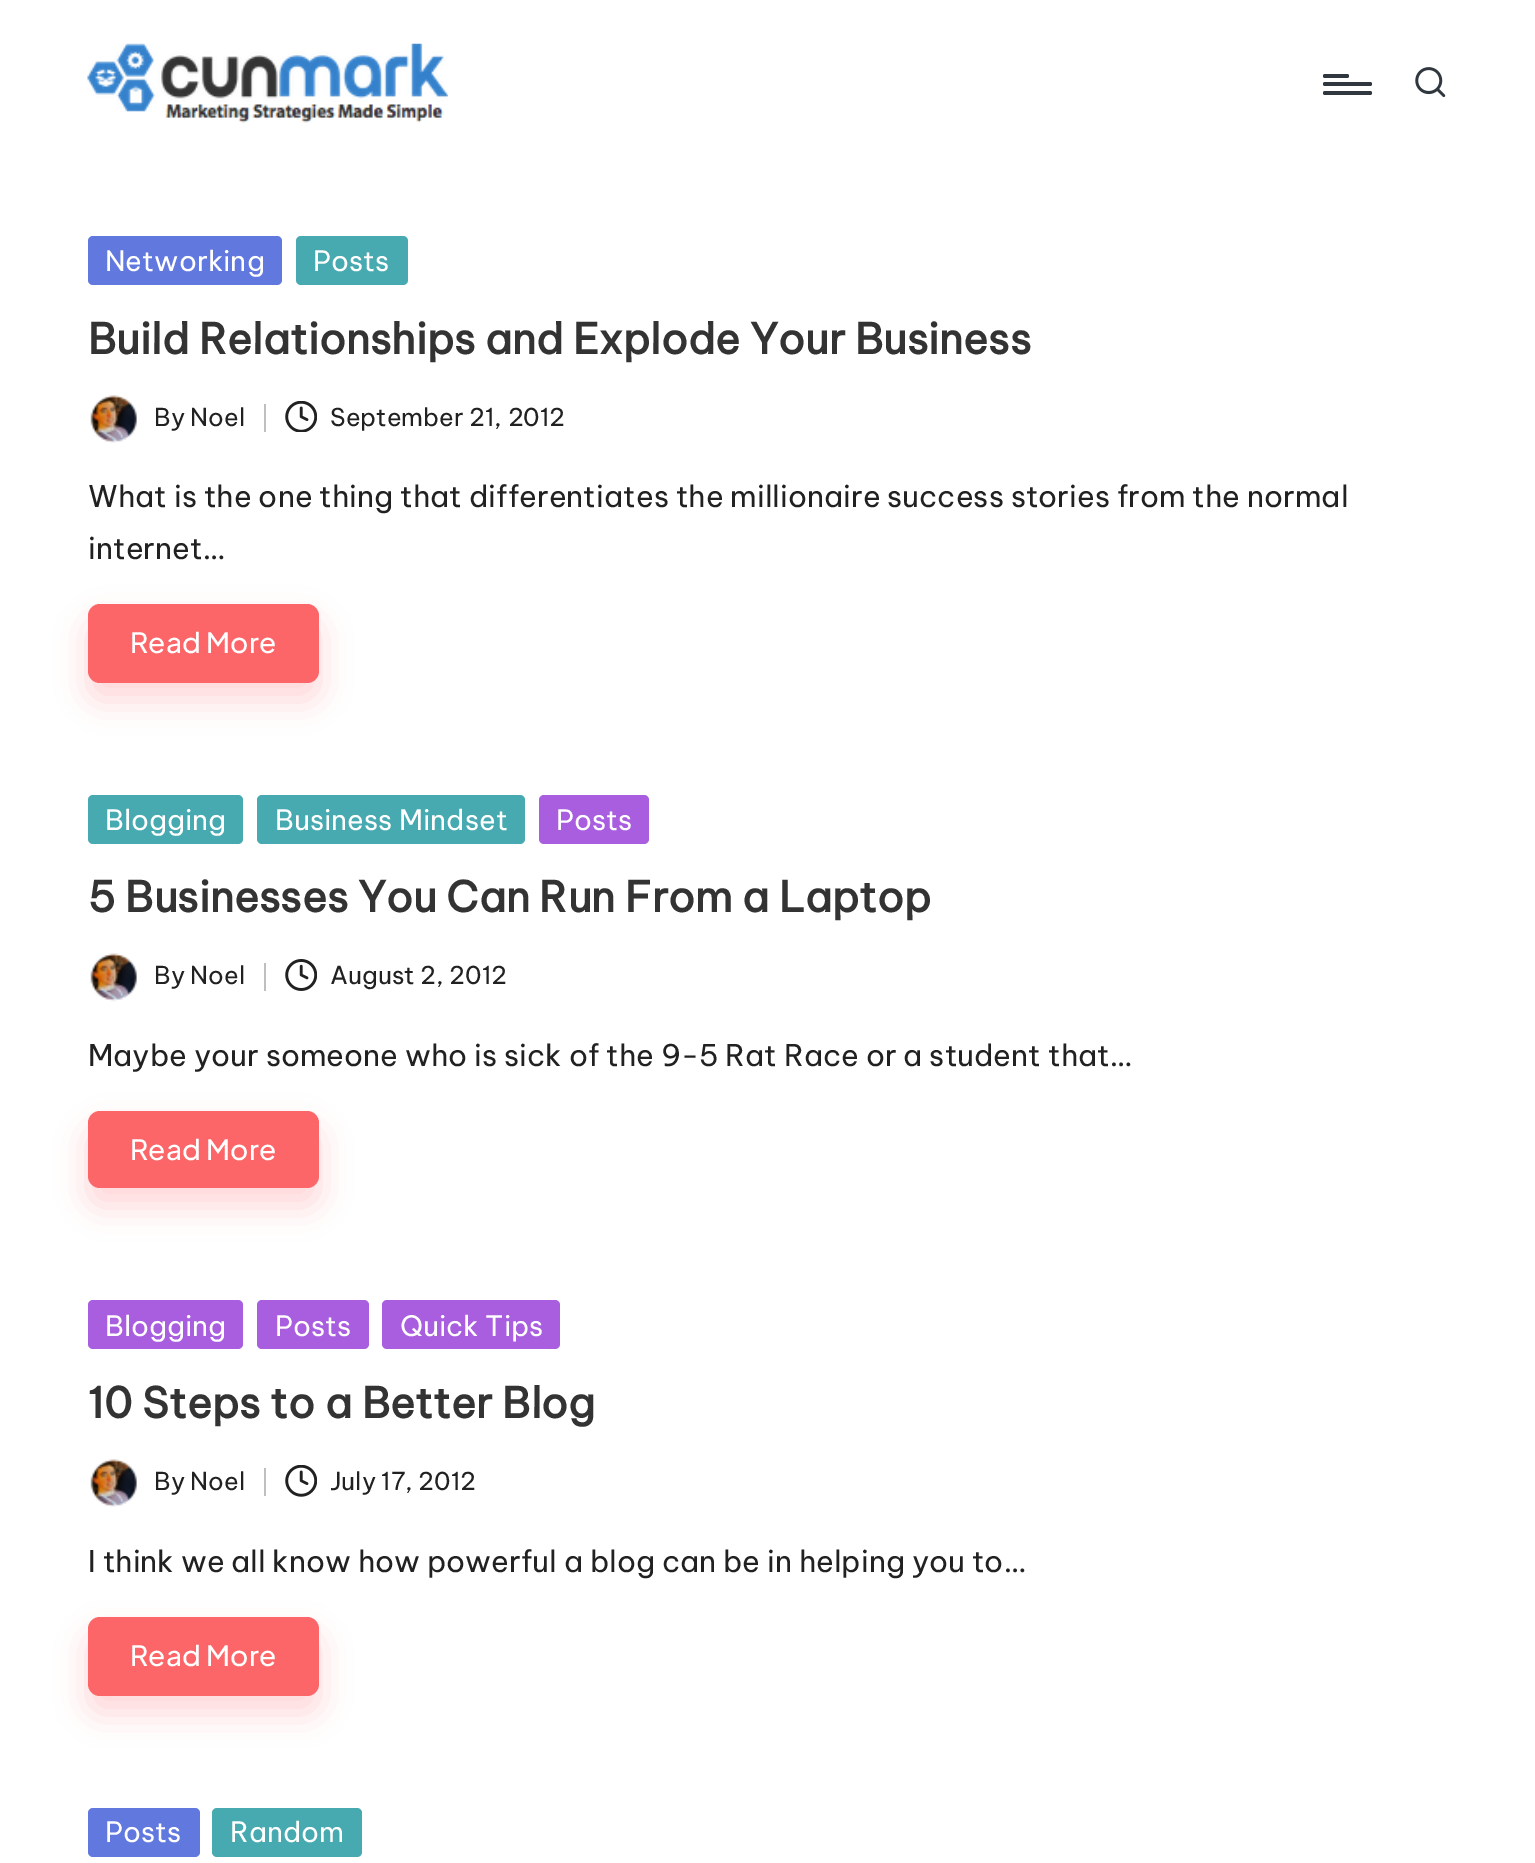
%!PS
<< /PageSize [1535 1863] /PageUsesTransparency true >> setpagedevice
/rgb { 3 { 255 div 3 1 roll } repeat setrgbcolor } def
/font { [ exch dup neg 0 0 3 -1 roll 0 0 ] selectfont } def
/alpha { dup .setfillconstantalpha .setstrokeconstantalpha } def
/roundrect { 5 dict begin { /r /h /w /y /x } { exch def } forall
  x r add y moveto x w add y 2 copy h add r arct x w add y h add x 1 index r arct
  x y h add x y r arct x y 2 copy exch w add exch r arct closepath end } def
/shadow { 12 dict begin { /a /b /q /h /w /y /x } { exch def } forall gsave /was 0 def
  9 -2 -9 { dup b mul 4 div /e exch def 1 sub .425 mul 2.718 exch exp 1 add a .99 .min exch div /now exch def
    1 1 now sub 1 was sub div sub alpha /was now def
    w h .min e 2 mul add 0 gt { x e sub y e sub w e 2 mul add h e 2 mul add
      q e add b .6 mul add w h .min 2 div e add .min 0 .max roundrect fill } if } for grestore end } def
/picture { 5 dict begin { /h /w /y /x /name } { exch def } forall
  gsave x y translate w h scale
  w h 8 [w 0 0 h 0 0] name (r) file false 3 colorimage grestore end } def
0 .pushpdf14devicefilter
0 1863 translate 1 -1 scale
4 setmiterlimit
255 255 255 rgb
0 0 1535 1863 rectfill
(img/1.rgb) 87 43 361 80 picture
48 55 62 rgb
1323 82 49 4 2 roundrect fill
1323 74 26 4 2 roundrect fill
1323 91 49 4 2 roundrect fill
(img/2.rgb) 1415 67 31 31 picture
97 120 223 rgb
88 236 194 49 5 roundrect fill
72 170 177 rgb
296 236 112 49 5 roundrect fill
(img/3.rgb) 90 395 47 48 picture
191 191 191 rgb
264 404 2 28 rectfill
(img/4.rgb) 285 401 32 31 picture
252 102 104 rgb
88 621 231 79 12 16 0.27 shadow
88 604 231 79 12 roundrect fill
72 170 177 rgb
88 795 155 49 5 roundrect fill
257 795 268 49 5 roundrect fill
169 94 223 rgb
539 795 110 49 5 roundrect fill
(img/5.rgb) 90 953 47 49 picture
191 191 191 rgb
264 963 2 28 rectfill
(img/6.rgb) 285 959 32 32 picture
252 102 104 rgb
88 1129 231 77 12 16 0.27 shadow
88 1111 231 77 12 roundrect fill
169 94 223 rgb
88 1300 155 49 5 roundrect fill
257 1300 112 49 5 roundrect fill
382 1300 178 49 5 roundrect fill
(img/3.rgb) 90 1459 47 48 picture
191 191 191 rgb
264 1468 2 28 rectfill
(img/7.rgb) 285 1465 32 32 picture
252 102 104 rgb
88 1635 231 78 12 16 0.27 shadow
88 1617 231 79 12 roundrect fill
97 120 223 rgb
88 1808 112 49 5 roundrect fill
72 170 177 rgb
212 1808 150 49 5 roundrect fill
/BeVietnamPro-Regular 28 font
255 255 255 rgb
105 271 moveto (Networking) show
313 271 moveto (Posts) show
/BeVietnamPro-Bold 42 font
51 51 51 rgb
88 354 moveto (Build Relationships and Explode Your Business) show
/BeVietnamPro-Regular 24.5 font
33 33 33 rgb
154 426 moveto (By Noel) show
330 426 moveto (September 21, 2012) show
/BeVietnamPro-Regular 29.75 font
88 507 moveto (What is the one thing that differentiates the millionaire success stories from the normal) show
88 559 moveto (internet…) show
/PlusJakartaSans-Medium 28 font
255 255 255 rgb
130 653 moveto 0.25 0 (Read More) ashow
/BeVietnamPro-Regular 28 font
[
  [(Blogging) 105 830]
  [(Business Mindset) 275 830]
  [(Posts) 556 830]
] { aload pop moveto show } forall
/BeVietnamPro-Bold 42 font
51 51 51 rgb
88 912 moveto (5 Businesses You Can Run From a Laptop) show
/BeVietnamPro-Regular 24.5 font
33 33 33 rgb
154 984 moveto (By Noel) show
330 984 moveto (August 2, 2012) show
/BeVietnamPro-Regular 29.75 font
88 1066 moveto (Maybe your someone who is sick of the 9-5 Rat Race or a student that…) show
/PlusJakartaSans-Medium 28 font
255 255 255 rgb
130 1160 moveto 0.25 0 (Read More) ashow
/BeVietnamPro-Regular 28 font
[
  [(Blogging) 105 1336]
  [(Posts) 275 1336]
  [(Quick Tips) 400 1336]
] { aload pop moveto show } forall
/BeVietnamPro-Bold 42 font
51 51 51 rgb
88 1418 moveto (10 Steps to a Better Blog) show
/BeVietnamPro-Regular 24.5 font
33 33 33 rgb
154 1490 moveto (By Noel) show
330 1490 moveto (July 17, 2012) show
/BeVietnamPro-Regular 29.75 font
88 1572 moveto (I think we all know how powerful a blog can be in helping you to…) show
/PlusJakartaSans-Medium 28 font
255 255 255 rgb
130 1666 moveto 0.25 0 (Read More) ashow
/BeVietnamPro-Regular 28 font
105 1842 moveto (Posts) show
230 1842 moveto (Random) show
.poppdf14devicefilter showpage
